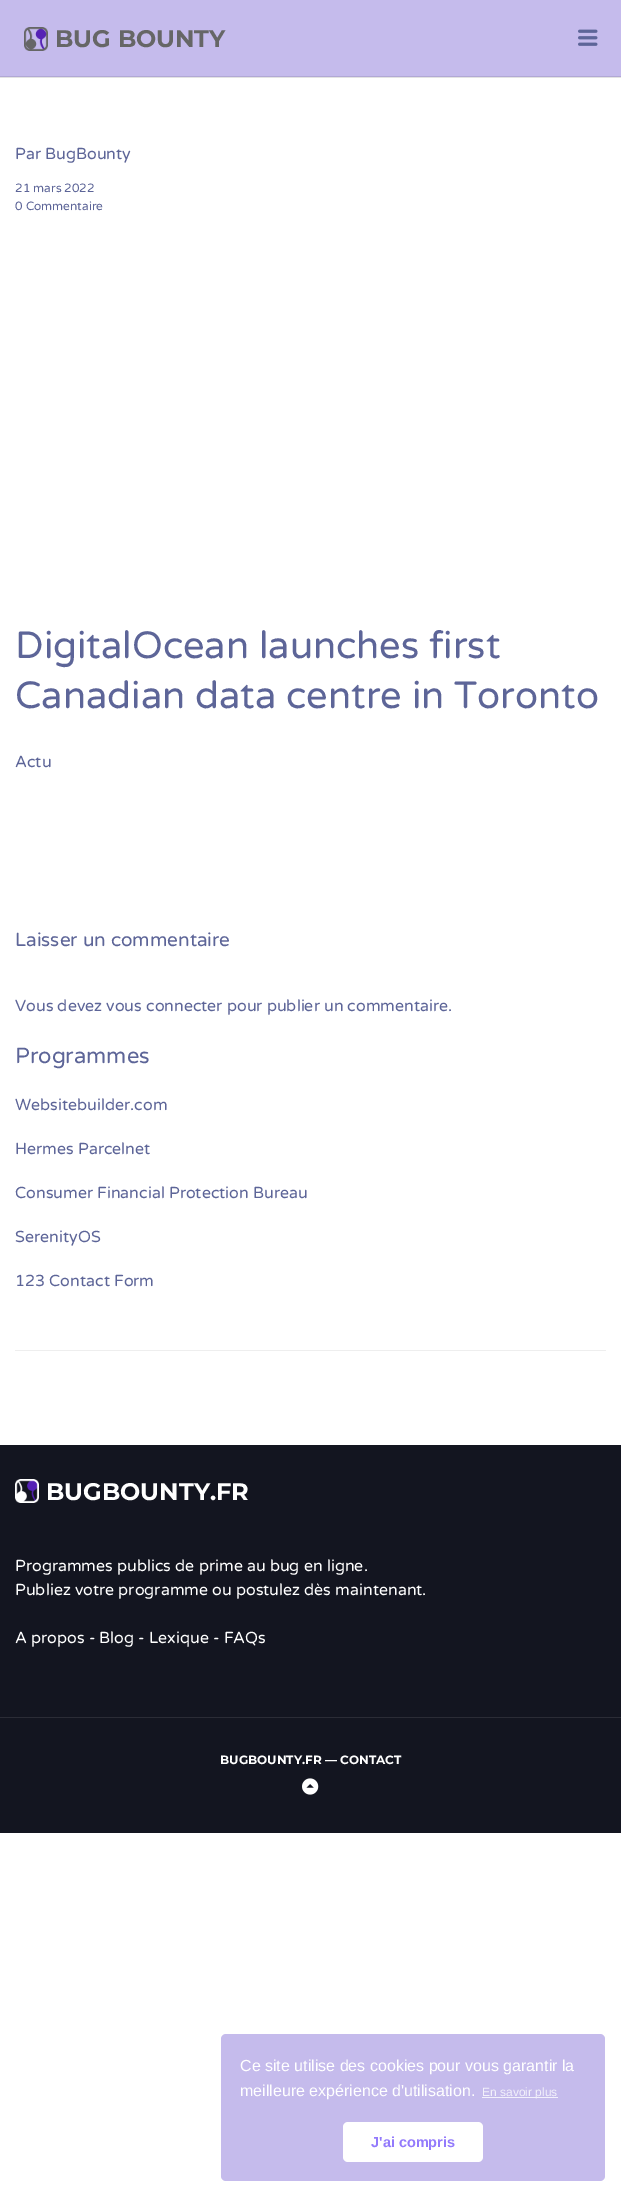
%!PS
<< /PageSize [621 2197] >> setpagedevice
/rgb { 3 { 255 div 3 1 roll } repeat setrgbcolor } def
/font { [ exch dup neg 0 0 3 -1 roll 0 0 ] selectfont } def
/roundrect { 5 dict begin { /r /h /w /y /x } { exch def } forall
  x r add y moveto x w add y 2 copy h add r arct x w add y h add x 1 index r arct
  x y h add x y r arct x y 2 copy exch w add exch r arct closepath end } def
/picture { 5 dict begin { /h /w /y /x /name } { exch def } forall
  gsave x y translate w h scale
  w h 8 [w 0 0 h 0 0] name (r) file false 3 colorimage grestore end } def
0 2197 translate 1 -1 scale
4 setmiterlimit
255 255 255 rgb
0 0 621 2197 rectfill
[
  [0 0 621 76 197 187 236]
  [0 76 621 1 177 168 212]
  [0 77 621 1 226 226 226]
] { aload pop rgb rectfill } forall
(img/1.rgb) 24 27 24 24 picture
(img/2.rgb) 578 29 20 17 picture
238 238 238 rgb
15 1350 591 1 rectfill
19 21 32 rgb
0 1445 621 388 rectfill
(img/3.rgb) 15 1479 24 24 picture
43 44 54 rgb
0 1717 621 1 rectfill
(img/4.rgb) 302 1778 17 17 picture
197 187 236 rgb
221 2034 384 147 5 roundrect fill
243 241 251 rgb
482 2097 76 1 rectfill
255 255 255 rgb
343 2122 140 40 5 roundrect fill
/Montserrat-Bold 24 font
102 102 102 rgb
55 47 moveto (BUG BOUNTY) show
/VarelaRound-Regular 16 font
93 101 152 rgb
15 159 moveto (Par BugBounty) show
/VarelaRound-Regular 12 font
15 192 moveto (21 mars 2022) show
15 210 moveto (0 Commentaire) show
/VarelaRound-Regular 38 font
15 658 moveto (DigitalOcean launches first) show
15 708 moveto (Canadian data centre in Toronto) show
/VarelaRound-Regular 16 font
15 767 moveto (Actu) show
/VarelaRound-Regular 19 font
15 946 moveto (Laisser un commentaire) show
/VarelaRound-Regular 16 font
15 1011 moveto (Vous devez vous connecter pour publier un commentaire.) show
/VarelaRound-Regular 22 font
15 1063 moveto (Programmes) show
/VarelaRound-Regular 16 font
[
  [(Websitebuilder.com) 15 1110]
  [(Hermes Parcelnet) 15 1154]
  [(Consumer Financial Protection Bureau) 15 1198]
  [(SerenityOS) 15 1242]
  [(123 Contact Form) 15 1286]
] { aload pop moveto show } forall
/Montserrat-Bold 24 font
255 255 255 rgb
46 1500 moveto (BUGBOUNTY.FR) show
/VarelaRound-Regular 16 font
[
  [(Programmes publics de prime au bug en ligne.) 15 1571]
  [(Publiez votre programme ou postulez dès maintenant.) 15 1595]
  [(A propos - Blog - Lexique - FAQs) 15 1643]
] { aload pop moveto show } forall
/Montserrat-Bold 12 font
220 1764 moveto (BUGBOUNTY.FR — CONTACT) show
/LiberationSans-Regular 16 font
240 2071 moveto (Ce site utilise des cookies pour vous garantir la) show
240 2096 moveto (meilleure expérience d'utilisation.) show
/LiberationSans-Regular 12 font
243 241 251 rgb
482 2096 moveto (En savoir plus) show
/LiberationSans-Bold 14.5 font
147 122 252 rgb
371 2147 moveto (J'ai compris) show
showpage
